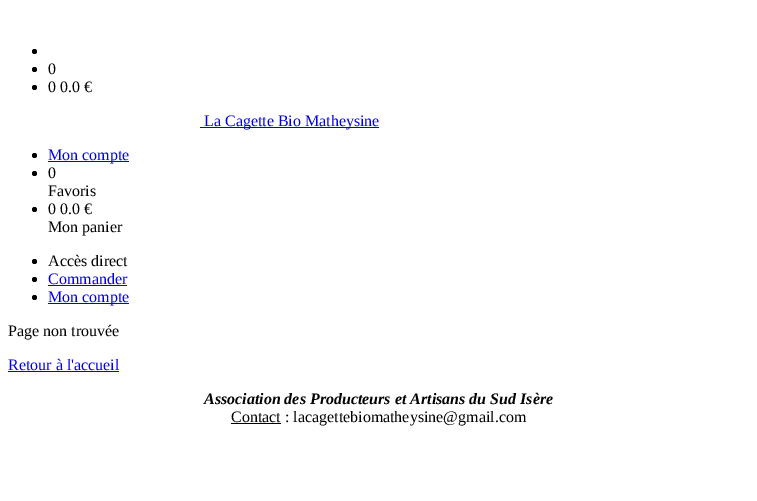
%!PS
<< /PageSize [757 501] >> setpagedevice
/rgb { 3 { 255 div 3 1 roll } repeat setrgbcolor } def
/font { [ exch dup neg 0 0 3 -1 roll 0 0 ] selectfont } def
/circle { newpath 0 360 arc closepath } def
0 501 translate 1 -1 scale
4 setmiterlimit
255 255 255 rgb
0 0 757 501 rectfill
0 0 0 rgb
34.5 51.5 2.5 circle fill
34.5 69.5 2.5 circle fill
34.5 87.5 2.5 circle fill
0 0 238 rgb
200 127 179 1 rectfill
0 0 0 rgb
34.5 155.5 2.5 circle fill
0 0 238 rgb
48 161 81 1 rectfill
0 0 0 rgb
34.5 173.5 2.5 circle fill
34.5 209.5 2.5 circle fill
34.5 261.5 2.5 circle fill
34.5 279.5 2.5 circle fill
0 0 238 rgb
48 285 79 1 rectfill
0 0 0 rgb
34.5 297.5 2.5 circle fill
[
  [48 303 81 1 0 0 238]
  [8 371 111 1 0 0 238]
  [231 423 50 1 0 0 0]
] { aload pop rgb rectfill } forall
/LiberationSerif-Regular 16 font
48 74 moveto (0) show
48 92 moveto (0 0.0 €) show
0 0 238 rgb
204 126 moveto (La Cagette Bio Matheysine) show
48 160 moveto (Mon compte) show
0 0 0 rgb
[
  [(0) 48 178]
  [(Favoris) 48 196]
  [(0 0.0 €) 48 214]
  [(Mon panier) 48 232]
  [(Accès direct) 48 266]
] { aload pop moveto show } forall
0 0 238 rgb
48 284 moveto (Commander) show
48 302 moveto (Mon compte) show
0 0 0 rgb
8 336 moveto (Page non trouvée) show
0 0 238 rgb
8 370 moveto (Retour à l'accueil) show
/LiberationSerif-BoldItalic 16 font
0 0 0 rgb
204 404 moveto (Association des Producteurs et Artisans du Sud Isère) show
/LiberationSerif-Regular 16 font
231 422 moveto (Contact : lacagettebiomatheysine@gmail.com) show
showpage
